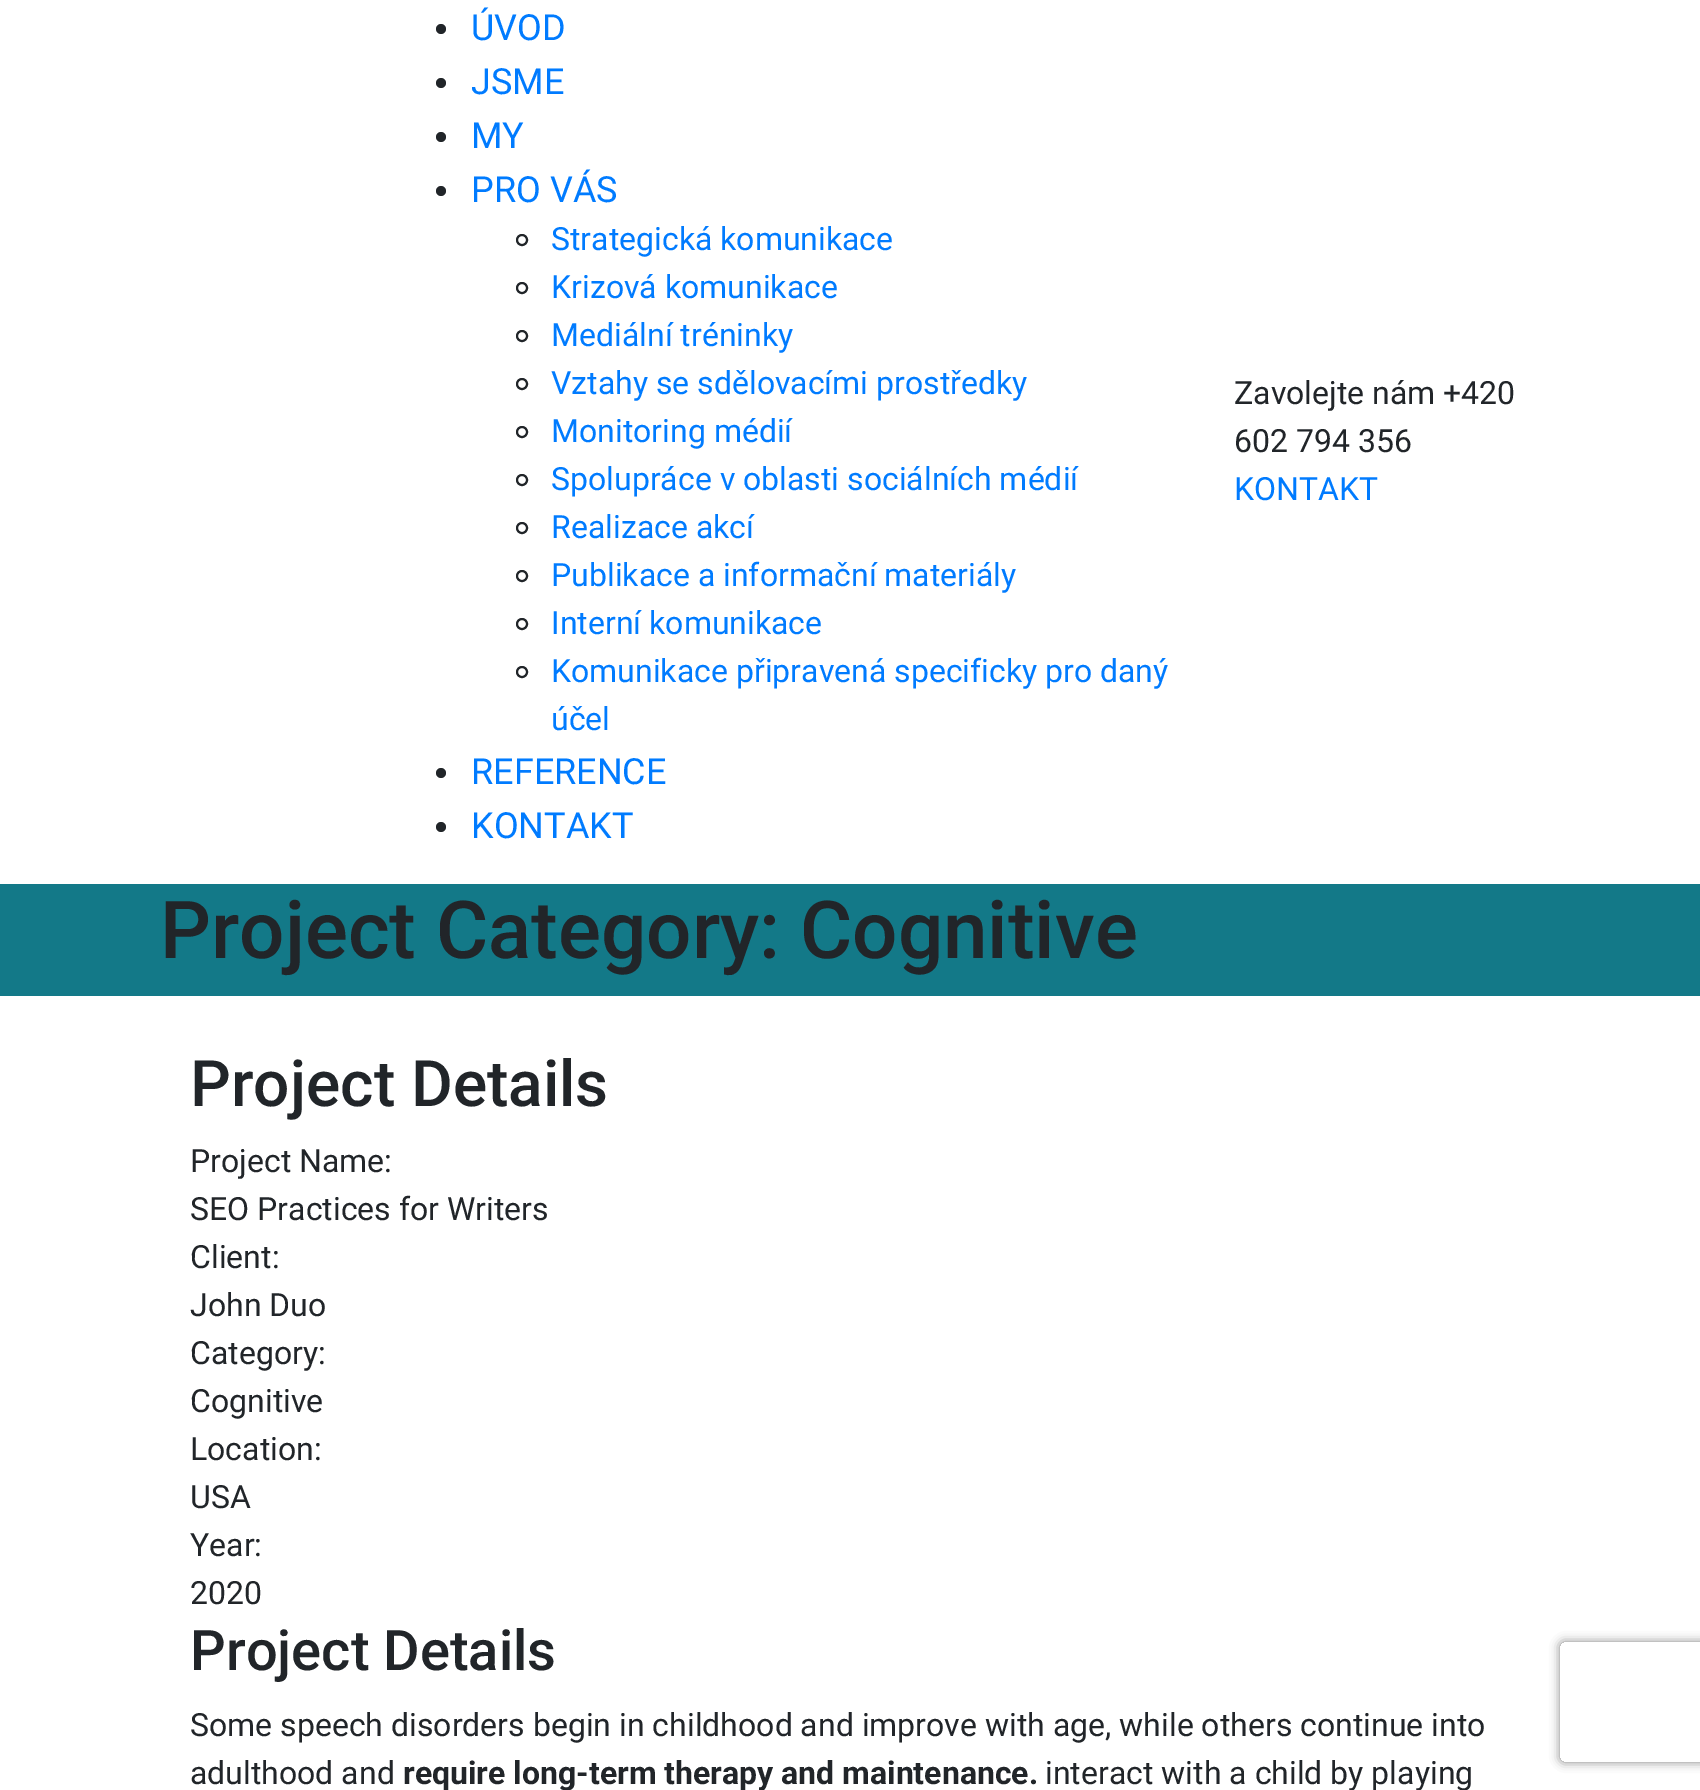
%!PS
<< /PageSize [1700 1790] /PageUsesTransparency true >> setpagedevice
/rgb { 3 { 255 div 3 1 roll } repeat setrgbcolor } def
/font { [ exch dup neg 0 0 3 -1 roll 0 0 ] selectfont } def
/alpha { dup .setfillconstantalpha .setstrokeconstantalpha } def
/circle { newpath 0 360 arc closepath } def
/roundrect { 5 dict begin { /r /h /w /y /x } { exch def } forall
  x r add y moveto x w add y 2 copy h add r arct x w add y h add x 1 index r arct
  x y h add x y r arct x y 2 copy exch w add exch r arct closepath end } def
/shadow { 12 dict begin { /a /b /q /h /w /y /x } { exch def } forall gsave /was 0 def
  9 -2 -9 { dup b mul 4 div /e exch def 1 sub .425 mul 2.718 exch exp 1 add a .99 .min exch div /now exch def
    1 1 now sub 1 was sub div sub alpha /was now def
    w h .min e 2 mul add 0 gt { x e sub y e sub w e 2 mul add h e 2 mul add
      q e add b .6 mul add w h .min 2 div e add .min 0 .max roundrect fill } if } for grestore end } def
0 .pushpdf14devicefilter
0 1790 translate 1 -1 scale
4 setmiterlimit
255 255 255 rgb
0 0 1700 1790 rectfill
33 37 41 rgb
441 29 5 circle fill
441 83 5 circle fill
441 137 5 circle fill
441 191 5 circle fill
2 setlinewidth
522 240 5 circle stroke
522 288 5 circle stroke
522 336 5 circle stroke
522 384 5 circle stroke
522 432 5 circle stroke
522 480 5 circle stroke
522 528 5 circle stroke
522 576 5 circle stroke
522 624 5 circle stroke
522 672 5 circle stroke
441 773 5 circle fill
441 827 5 circle fill
19 121 136 rgb
0 884 1700 112 rectfill
gsave
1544 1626 moveto 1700 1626 lineto 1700 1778 lineto 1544 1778 lineto closepath 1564 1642 moveto 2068 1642 lineto 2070 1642 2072 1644 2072 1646 curveto 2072 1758 lineto 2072 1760 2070 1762 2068 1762 curveto 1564 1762 lineto 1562 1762 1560 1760 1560 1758 curveto 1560 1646 lineto 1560 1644 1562 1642 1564 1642 curveto closepath eoclip newpath
128 128 128 rgb
1560 1642 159 120 4 5 1 shadow
grestore
/Roboto-Regular 36 font
0 123 255 rgb
[
  [(ÚVOD) 471 40]
  [(JSME) 471 94]
  [(MY) 471 148]
  [(PRO VÁS) 471 202]
] { aload pop moveto show } forall
/Roboto-Regular 32 font
[
  [(Strategická komunikace) 551 250]
  [(Krizová komunikace) 551 298]
  [(Mediální tréninky) 551 346]
  [(Vztahy se sdělovacími prostředky) 551 394]
  [(Monitoring médií) 551 442]
  [(Spolupráce v oblasti sociálních médií) 551 490]
  [(Realizace akcí) 551 538]
  [(Publikace a informační materiály) 551 586]
  [(Interní komunikace) 551 634]
  [(Komunikace připravená specificky pro daný) 551 682]
  [(účel) 551 730]
] { aload pop moveto show } forall
/Roboto-Regular 36 font
471 784 moveto (REFERENCE) show
471 838 moveto (KONTAKT) show
/Roboto-Regular 32 font
33 37 41 rgb
1234 404 moveto (Zavolejte nám +420) show
1234 452 moveto (602 794 356) show
0 123 255 rgb
1234 500 moveto (KONTAKT) show
/Roboto-Medium 80 font
33 37 41 rgb
160 958 moveto (Project Category: Cognitive) show
/Roboto-Medium 64 font
190 1106 moveto (Project Details) show
/Roboto-Regular 32 font
[
  [(Project Name:) 190 1172]
  [(SEO Practices for Writers) 190 1220]
  [(Client:) 190 1268]
  [(John Duo) 190 1316]
  [(Category:) 190 1364]
  [(Cognitive) 190 1412]
  [(Location:) 190 1460]
  [(USA) 190 1508]
  [(Year:) 190 1556]
  [(2020) 190 1604]
] { aload pop moveto show } forall
/Roboto-Medium 56 font
190 1670 moveto (Project Details) show
/Roboto-Regular 32 font
190 1736 moveto (Some speech disorders begin in childhood and improve with age, while others continue into) show
190 1784 moveto (adulthood and) show
/Roboto-Bold 32 font
403 1784 moveto (require long-term therapy and maintenance.) show
/Roboto-Regular 32 font
1045 1784 moveto (interact with a child by playing) show
.poppdf14devicefilter showpage
